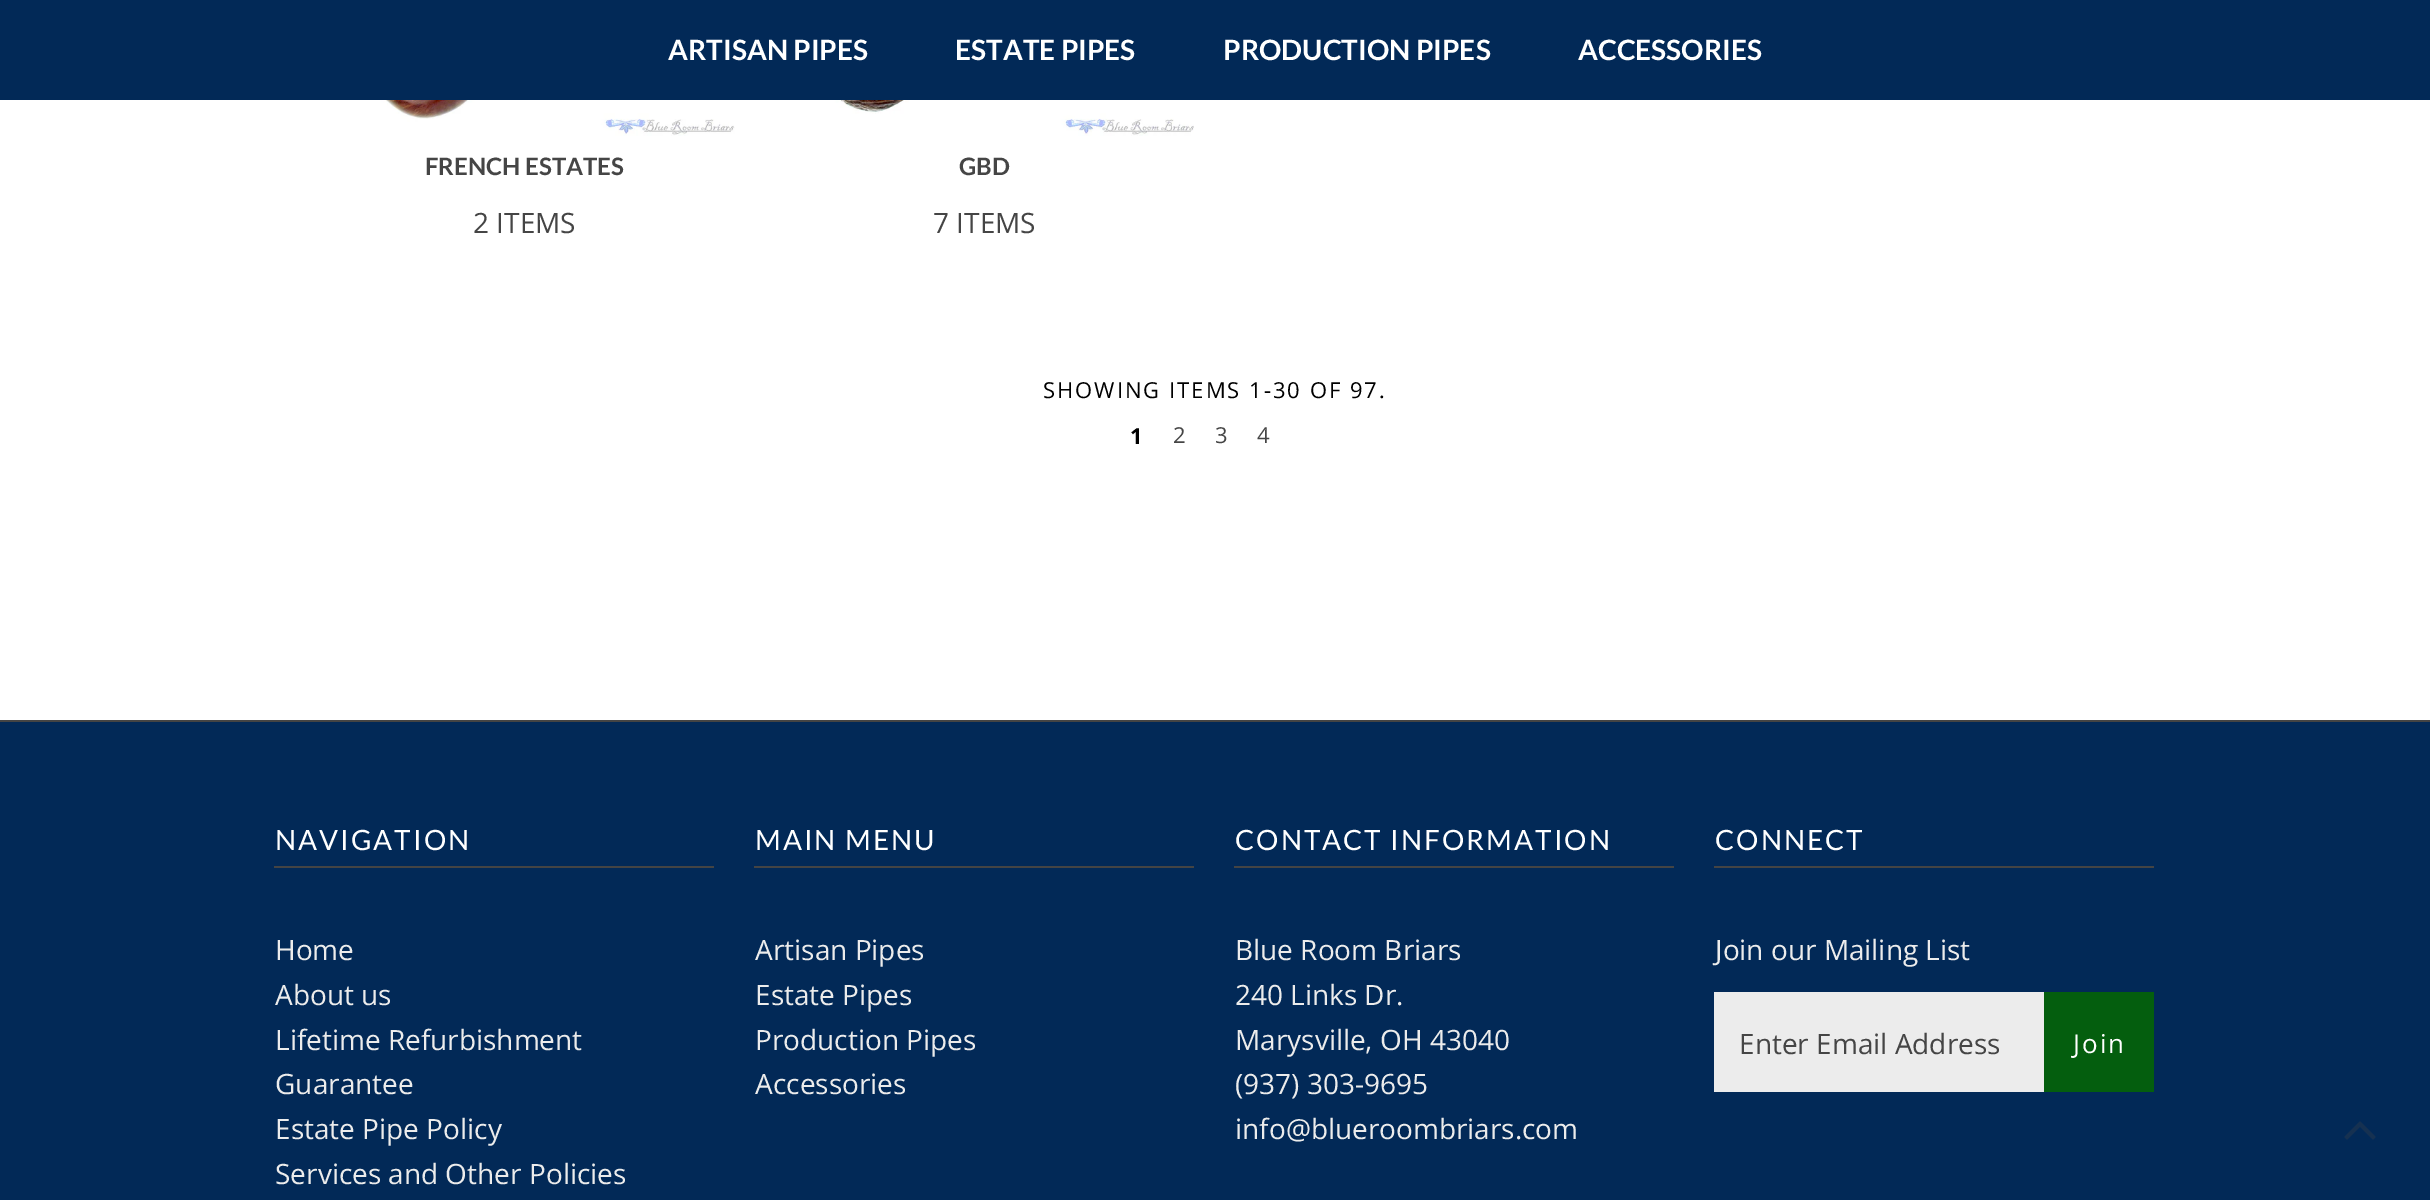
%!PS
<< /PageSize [2430 1200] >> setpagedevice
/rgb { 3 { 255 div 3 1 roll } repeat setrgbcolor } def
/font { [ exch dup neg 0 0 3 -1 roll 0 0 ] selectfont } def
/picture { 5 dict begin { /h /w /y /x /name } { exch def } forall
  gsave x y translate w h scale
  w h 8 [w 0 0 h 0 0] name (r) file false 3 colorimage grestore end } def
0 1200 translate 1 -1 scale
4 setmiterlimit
255 255 255 rgb
0 0 2430 1200 rectfill
2 41 87 rgb
0 0 2430 100 rectfill
(img/1.rgb) 339 100 396 36 picture
(img/2.rgb) 794 100 400 36 picture
[
  [0 722 2430 478 2 41 87]
  [0 720 2430 2 68 68 68]
  [274 866 440 2 68 68 68]
  [754 866 440 2 68 68 68]
  [1234 866 440 2 68 68 68]
  [1714 866 440 2 68 68 68]
  [1714 992 330 100 236 236 236]
  [2044 992 110 100 4 94 14]
] { aload pop rgb rectfill } forall
(img/3.rgb) 2344 1121 32 19 picture
/Lato-Bold 28 font
255 255 255 rgb
[
  [(ARTISAN PIPES) 668 60]
  [(ESTATE PIPES) 955 60]
  [(PRODUCTION PIPES) 1223 60]
  [(ACCESSORIES) 1578 60]
] { aload pop moveto show } forall
/Lato-Bold 24 font
69 69 69 rgb
425 175 moveto (FRENCH ESTATES) show
/OpenSans-Regular 28 font
473 233 moveto (2 ITEMS) show
/Lato-Bold 24 font
959 175 moveto (GBD) show
/OpenSans-Regular 28 font
933 233 moveto (7 ITEMS) show
/OpenSans-Regular 22 font
0 0 0 rgb
1043 398 moveto 2 0 (SHOWING ITEMS 1-30 OF 97.) ashow
/OpenSans-Bold 22 font
1130 444 moveto 2 0 (1) ashow
/OpenSans-Regular 22 font
69 69 69 rgb
1173 443 moveto 2 0 (2) ashow
1215 443 moveto 2 0 (3) ashow
1257 443 moveto 2 0 (4) ashow
/Lato-Regular 28 font
255 255 255 rgb
275 850 moveto 2 0 (NAVIGATION) ashow
/OpenSans-Regular 28 font
236 236 236 rgb
[
  [(Home) 275 960]
  [(About us) 275 1005]
  [(Lifetime Refurbishment) 275 1050]
  [(Guarantee) 275 1094]
  [(Estate Pipe Policy) 275 1139]
  [(Services and Other Policies) 275 1184]
] { aload pop moveto show } forall
/Lato-Regular 28 font
255 255 255 rgb
755 850 moveto 2 0 (MAIN MENU) ashow
/OpenSans-Regular 28 font
236 236 236 rgb
[
  [(Artisan Pipes) 755 960]
  [(Estate Pipes) 755 1005]
  [(Production Pipes) 755 1050]
  [(Accessories) 755 1094]
] { aload pop moveto show } forall
/Lato-Regular 28 font
255 255 255 rgb
1235 850 moveto 2 0 (CONTACT INFORMATION) ashow
/OpenSans-Regular 28 font
236 236 236 rgb
[
  [(Blue Room Briars) 1235 960]
  [(240 Links Dr.) 1235 1005]
  [(Marysville, OH 43040) 1235 1050]
  [(\(937\) 303-9695) 1235 1094]
  [(info@blueroombriars.com) 1235 1139]
] { aload pop moveto show } forall
/Lato-Regular 28 font
255 255 255 rgb
1715 850 moveto 2 0 (CONNECT) ashow
/OpenSans-Regular 28 font
236 236 236 rgb
1715 960 moveto (Join our Mailing List) show
69 69 69 rgb
1739 1054 moveto (Enter Email Address) show
/OpenSans-Regular 26 font
255 255 255 rgb
2073 1053 moveto 2 0 (Join) ashow
showpage
